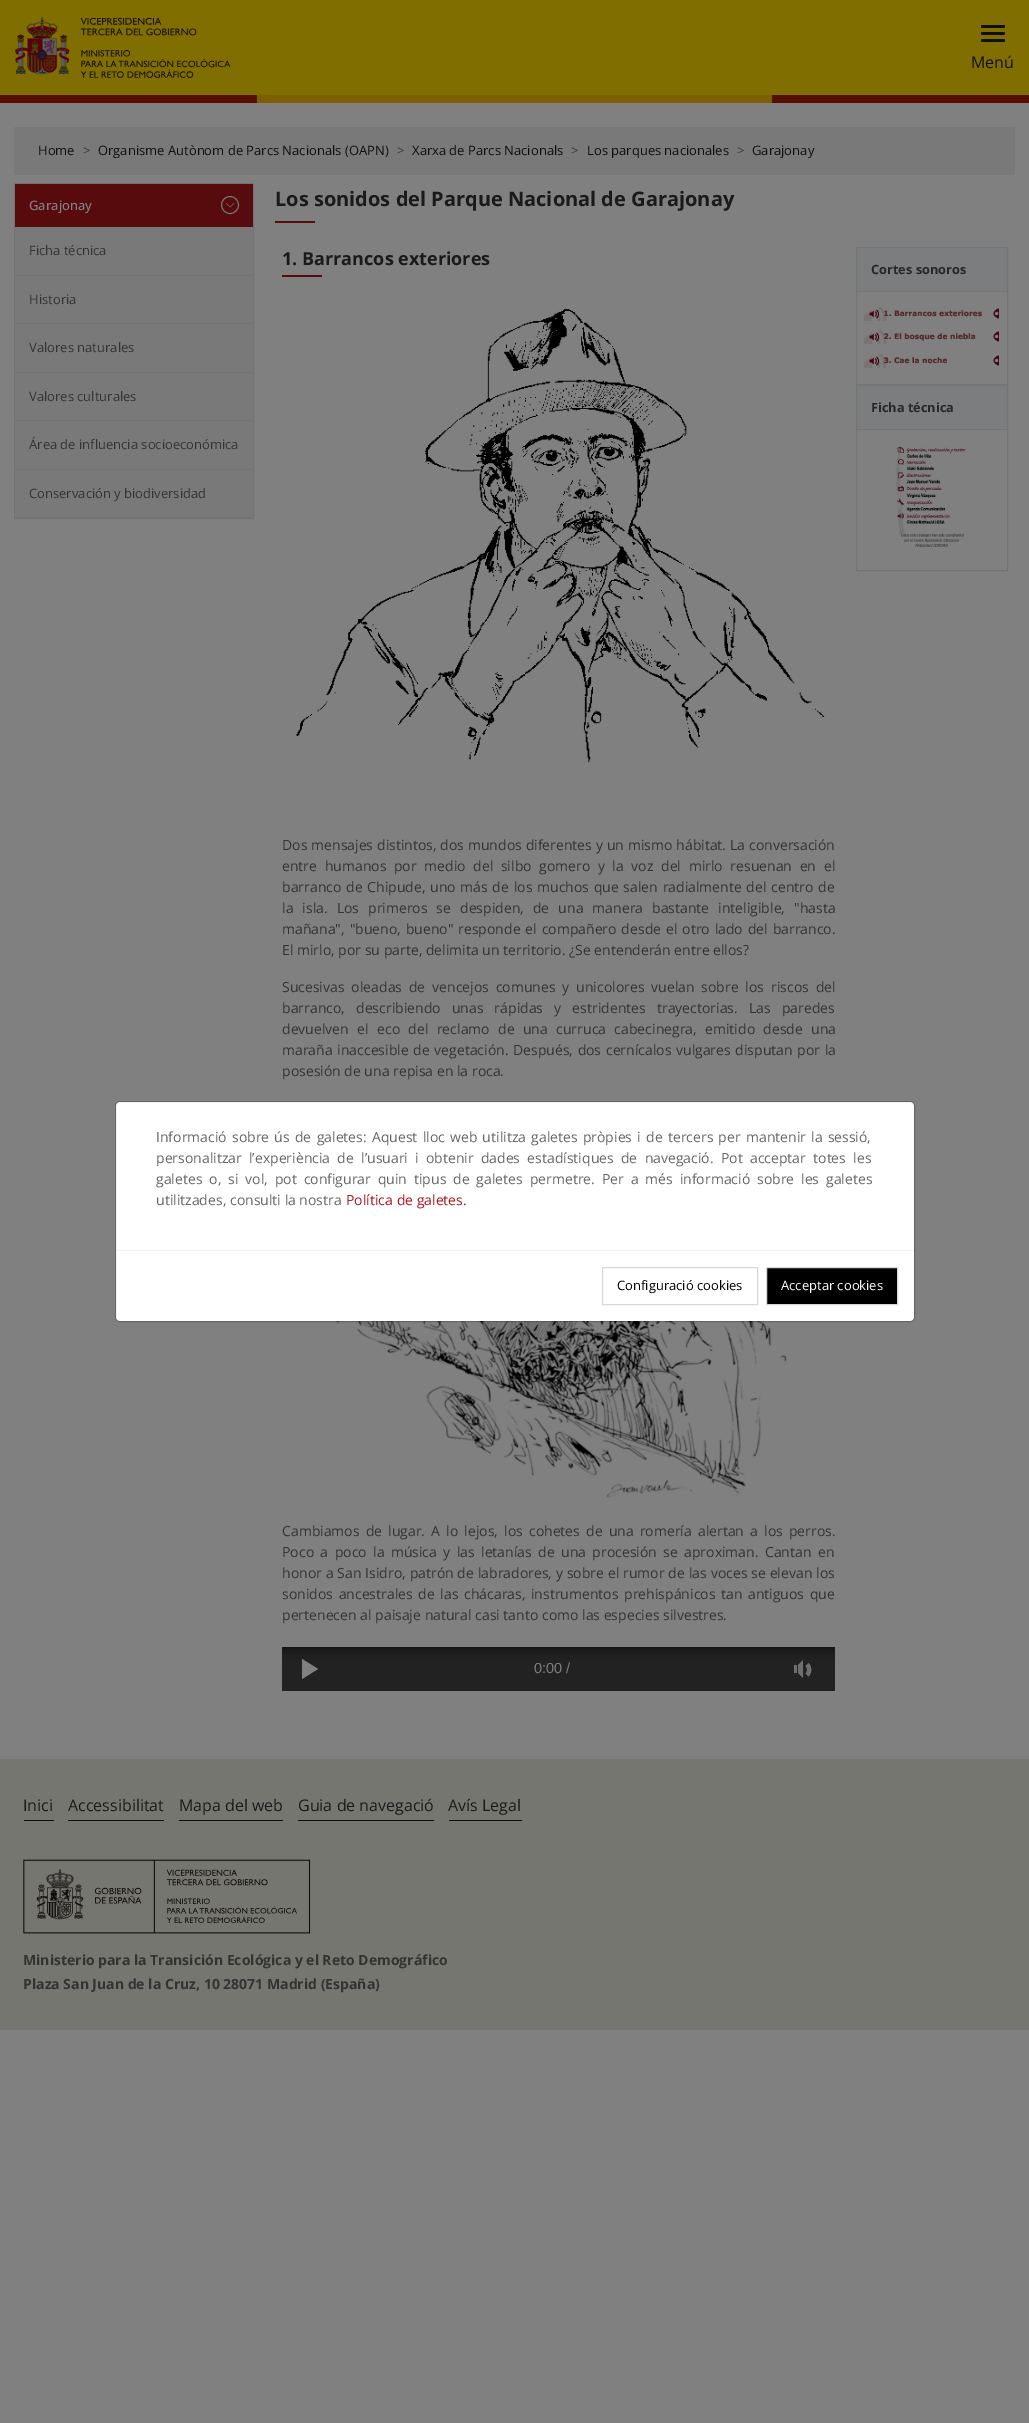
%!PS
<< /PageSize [1029 2423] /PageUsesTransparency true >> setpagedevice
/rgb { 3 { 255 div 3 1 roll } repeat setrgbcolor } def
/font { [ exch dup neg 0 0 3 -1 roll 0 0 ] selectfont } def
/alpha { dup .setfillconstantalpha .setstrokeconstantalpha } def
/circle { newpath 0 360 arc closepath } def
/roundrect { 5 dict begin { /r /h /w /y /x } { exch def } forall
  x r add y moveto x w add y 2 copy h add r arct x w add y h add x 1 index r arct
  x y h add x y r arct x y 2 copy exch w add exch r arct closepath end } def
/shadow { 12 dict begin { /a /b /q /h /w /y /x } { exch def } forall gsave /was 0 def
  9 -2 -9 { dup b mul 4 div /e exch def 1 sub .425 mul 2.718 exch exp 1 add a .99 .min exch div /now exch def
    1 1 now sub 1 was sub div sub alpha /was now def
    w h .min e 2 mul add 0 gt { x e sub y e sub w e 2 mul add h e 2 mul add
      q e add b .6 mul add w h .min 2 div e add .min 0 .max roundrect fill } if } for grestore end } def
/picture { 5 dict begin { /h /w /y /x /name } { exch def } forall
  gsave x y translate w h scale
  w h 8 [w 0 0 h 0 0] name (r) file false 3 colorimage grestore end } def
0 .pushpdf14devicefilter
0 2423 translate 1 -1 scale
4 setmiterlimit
128 128 128 rgb
0 0 1029 2423 rectfill
128 110 0 rgb
0 0 1029 95 rectfill
126 95 0 rgb
257 95 515 8 rectfill
(img/1.rgb) 14 17 217 61 picture
15 15 14 rgb
981 25 24 3 1.5 roundrect fill
981 32 24 3 1.5 roundrect fill
981 39 24 3 1.5 roundrect fill
[
  [0 95 257 8 84 15 2]
  [772 95 257 8 84 15 2]
  [14 127 1001 48 121 121 121]
] { aload pop rgb rectfill } forall
115 115 115 rgb
14.5 183.5 239 335 rectstroke
87 11 13 rgb
15 184 238 43 rectfill
(img/2.rgb) 226 203 9 5 picture
115 115 115 rgb
230 205 8.5 circle stroke
[
  [15 227 238 48 121 121 121]
  [15 275 238 1 115 115 115]
  [15 276 238 47 121 121 121]
  [15 323 238 1 115 115 115]
  [15 324 238 48 121 121 121]
  [15 372 238 1 115 115 115]
  [15 373 238 47 121 121 121]
  [15 420 238 1 115 115 115]
  [15 421 238 48 121 121 121]
  [15 469 238 1 115 115 115]
  [15 470 238 47 121 121 121]
  [15 517 238 1 115 115 115]
  [275 221 40 2 87 11 13]
  [282 275 40 2 87 11 13]
] { aload pop rgb rectfill } forall
(img/3.rgb) 296 309 529 454 picture
(img/4.rgb) 292 1321 495 177 picture
34 34 34 rgb
282 1647 553 44 rectfill
gsave
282 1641 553 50 rectclip
0 0 0 rgb
282 1643 553 6 0 5 0.53 shadow
grestore
128 128 128 rgb
282 1641 553 6 rectfill
302 1679 moveto 302 1659 lineto 318 1669 lineto closepath fill
111 111 111 rgb
794 1665 3 8 rectfill
803 1660 moveto 803 1678 lineto 798 1673 lineto 798 1665 lineto closepath fill
4.2 setlinewidth
807 1664.5 moveto 810 1667.5 810 1672 807 1675 curveto stroke
116 116 116 rgb
1 setlinewidth
856.5 247.5 151 137 rectstroke
124 125 126 rgb
857 248 150 43 rectfill
116 116 116 rgb
857 291 150 1 rectfill
(img/5.rgb) 864 306 135 15 picture
(img/6.rgb) 864 329 135 15 picture
(img/7.rgb) 864 353 135 15 picture
856.5 385.5 151 185 rectstroke
124 125 126 rgb
857 386 150 43 rectfill
116 116 116 rgb
857 429 150 1 rectfill
(img/8.rgb) 895 446 71 102 picture
255 255 255 rgb
116 1102 798 219 4 roundrect fill
0.2 alpha
0 0 0 rgb
115.5 1101.5 799 220 4.5 roundrect stroke
1 alpha
242 242 242 rgb
116 1250 798 1 rectfill
216 216 216 rgb
602.5 1267.5 155 37 rectstroke
0 0 0 rgb
766.5 1267.5 moveto 897.5 1267.5 lineto 897.5 1304.5 lineto 766.5 1304.5 lineto closepath gsave fill grestore
216 216 216 rgb
stroke
[
  [0 1759 1029 271 118 118 113]
  [24 1820 30 1 15 15 14]
  [68 1820 96 1 15 15 14]
  [179 1820 104 1 15 15 14]
  [298 1820 136 1 15 15 14]
  [449 1820 73 1 15 15 14]
] { aload pop rgb rectfill } forall
(img/9.rgb) 23 1859 288 75 picture
/OpenSans-Regular 16 font
15 15 15 rgb
971 68 moveto (Menú) show
/OpenSans-Regular 13 font
38 155 moveto (Home) show
54 59 63 rgb
83 155 moveto (>) show
15 15 15 rgb
98 155 moveto (Organisme Autònom de Parcs Nacionals \(OAPN\)) show
54 59 63 rgb
397 155 moveto (>) show
15 15 15 rgb
412 155 moveto (Xarxa de Parcs Nacionals) show
54 59 63 rgb
571 155 moveto (>) show
15 15 15 rgb
587 155 moveto (Los parques nacionales) show
54 59 63 rgb
737 155 moveto (>) show
15 15 15 rgb
752 155 moveto (Garajonay) show
/OpenSans-Medium 13 font
128 128 128 rgb
29 210 moveto (Garajonay) show
/OpenSans-Regular 13 font
51 51 51 rgb
[
  [(Ficha técnica) 29 255]
  [(Historia) 29 304]
  [(Valores naturales) 29 352]
  [(Valores culturales) 29 401]
  [(Área de influencia socioeconómica) 29 449]
  [(Conservación y biodiversidad) 29 498]
] { aload pop moveto show } forall
/OpenSans-Bold 20 font
26 26 26 rgb
275 206 moveto (Los sonidos del Parque Nacional de Garajonay) show
/OpenSans-Bold 18 font
282 265 moveto (1. Barrancos exteriores) show
/OpenSans-Regular 14 font
51 51 51 rgb
282 850 moveto 0.25 0 32 (Dos mensajes distintos, dos mundos diferentes y un mismo hábitat. La conversación) widthshow
282 871 moveto 4 0 32 (entre humanos por medio del silbo gomero y la voz del mirlo resuenan en el) widthshow
282 892 moveto 1.1 0 32 (barranco de Chipude, uno más de los muchos que salen radialmente del centro de) widthshow
282 913 moveto 5.4 0 32 (la isla. Los primeros se despiden, de una manera bastante inteligible, "hasta) widthshow
282 934 moveto 1.25 0 32 (mañana", "bueno, bueno" responde el compañero desde el otro lado del barranco.) widthshow
282 955 moveto (El mirlo, por su parte, delimita un territorio. ¿Se entenderán entre ellos?) show
282 992 moveto 3.25 0 32 (Sucesivas oleadas de vencejos comunes y unicolores vuelan sobre los riscos del) widthshow
282 1013 moveto 7.5 0 32 (barranco, describiendo unas rápidas y estridentes trayectorias. Las paredes) widthshow
282 1034 moveto 4.75 0 32 (devuelven el eco del reclamo de una curruca cabecinegra, emitido desde una) widthshow
282 1055 moveto 1 0 32 (maraña inaccesible de vegetación. Después, dos cernícalos vulgares disputan por la) widthshow
282 1076 moveto (posesión de una repisa en la roca.) show
282 1536 moveto 2.5 0 32 (Cambiamos de lugar. A lo lejos, los cohetes de una romería alertan a los perros.) widthshow
282 1557 moveto 2.75 0 32 (Poco a poco la música y las letanías de una procesión se aproximan. Cantan en) widthshow
282 1578 moveto 0.25 0 32 (honor a San Isidro, patrón de labradores, y sobre el rumor de las voces se elevan los) widthshow
282 1599 moveto 2 0 32 (sonidos ancestrales de las chácaras, instrumentos prehispánicos tan antiguos que) widthshow
282 1620 moveto (pertenecen al paisaje natural casi tanto como las especies silvestres.) show
/LiberationSans-Regular 14.5 font
128 128 128 rgb
534 1673 moveto (0:00 /) show
/OpenSans-Bold 12.75 font
39 39 39 rgb
871 274 moveto (Cortes sonoros) show
871 412 moveto (Ficha técnica) show
/OpenSans-Regular 14 font
102 102 102 rgb
156 1142 moveto 1.6 0 32 (Informació sobre ús de galetes: Aquest lloc web utilitza galetes pròpies i de tercers per mantenir la sessió,) widthshow
156 1163 moveto 3.6 0 32 (personalitzar l’experiència de l’usuari i obtenir dades estadístiques de navegació. Pot acceptar totes les) widthshow
156 1184 moveto 3.25 0 32 (galetes o, si vol, pot configurar quin tipus de galetes permetre. Per a més informació sobre les galetes) widthshow
156 1205 moveto (utilitzades, consulti la nostra) show
173 21 25 rgb
346 1205 moveto (Política de galetes.) show
/OpenSans-Regular 13 font
0 0 0 rgb
617 1290 moveto (Configuració cookies) show
255 255 255 rgb
781 1290 moveto (Acceptar cookies) show
/OpenSans-Regular 16 font
26 26 26 rgb
[
  [(Inici) 23 1811]
  [(Accessibilitat) 68 1811]
  [(Mapa del web) 179 1811]
  [(Guia de navegació) 298 1811]
  [(Avís Legal) 448 1811]
] { aload pop moveto show } forall
/OpenSans-Bold 14 font
51 51 51 rgb
23 1965 moveto (Ministerio para la Transición Ecológica y el Reto Demográfico) show
23 1989 moveto (Plaza San Juan de la Cruz, 10 28071 Madrid \(España\)) show
.poppdf14devicefilter showpage
